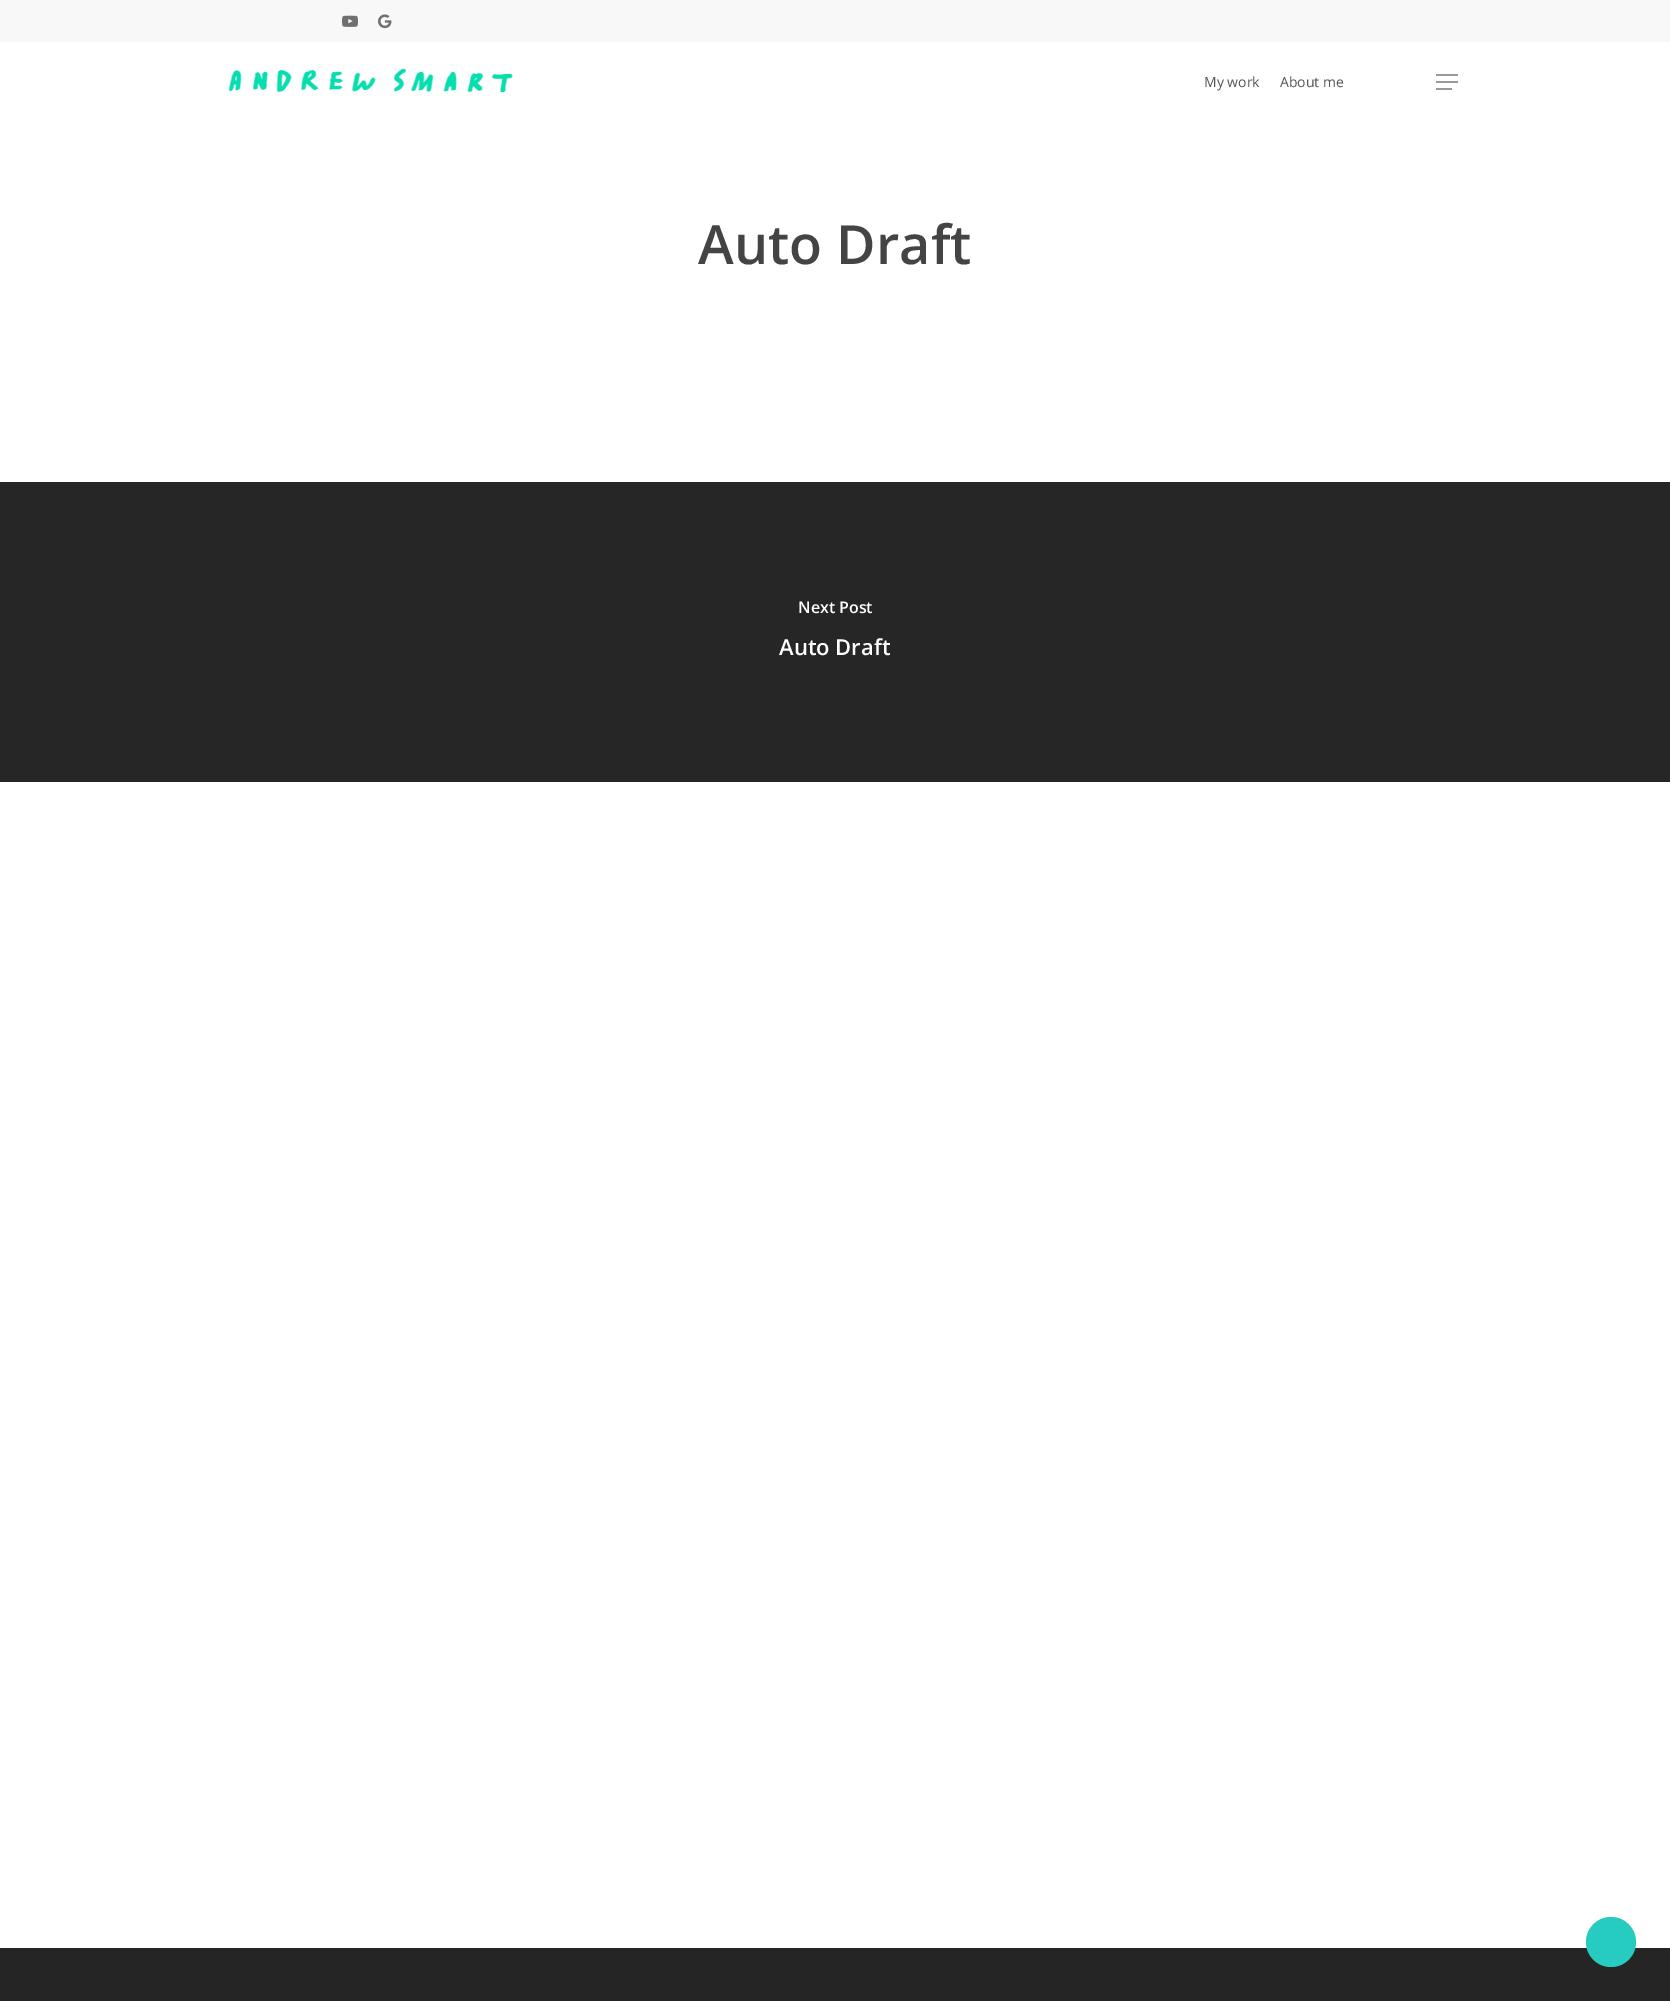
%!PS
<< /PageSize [1670 2001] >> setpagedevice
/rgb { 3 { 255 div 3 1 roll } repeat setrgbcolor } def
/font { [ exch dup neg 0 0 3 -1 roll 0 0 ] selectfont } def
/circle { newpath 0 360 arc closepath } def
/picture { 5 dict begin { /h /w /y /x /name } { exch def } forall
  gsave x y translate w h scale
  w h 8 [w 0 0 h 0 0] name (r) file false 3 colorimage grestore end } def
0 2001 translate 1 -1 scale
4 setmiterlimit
255 255 255 rgb
0 0 1670 2001 rectfill
248 248 248 rgb
0 0 1670 42 rectfill
(img/1.rgb) 342 15 16 12 picture
(img/2.rgb) 378 14 14 15 picture
(img/3.rgb) 228 68 285 25 picture
[
  [1436 74 22 2 153 153 153]
  [1436 88 16 2 153 153 153]
  [1436 81 22 2 153 153 153]
  [0 482 1670 300 38 38 38]
  [0 1948 1670 53 37 37 37]
] { aload pop rgb rectfill } forall
39 204 192 rgb
1611 1942 25 circle fill
/OpenSans-Regular 14 font
85 85 85 rgb
1204 87 moveto (My work) show
1280 87 moveto (About me) show
/OpenSans-SemiBold 54 font
68 68 68 rgb
698 264 moveto (Auto Draft) show
/OpenSans-SemiBold 16 font
255 255 255 rgb
798 613 moveto (Next Post) show
/OpenSans-SemiBold 22 font
779 655 moveto (Auto Draft) show
showpage
